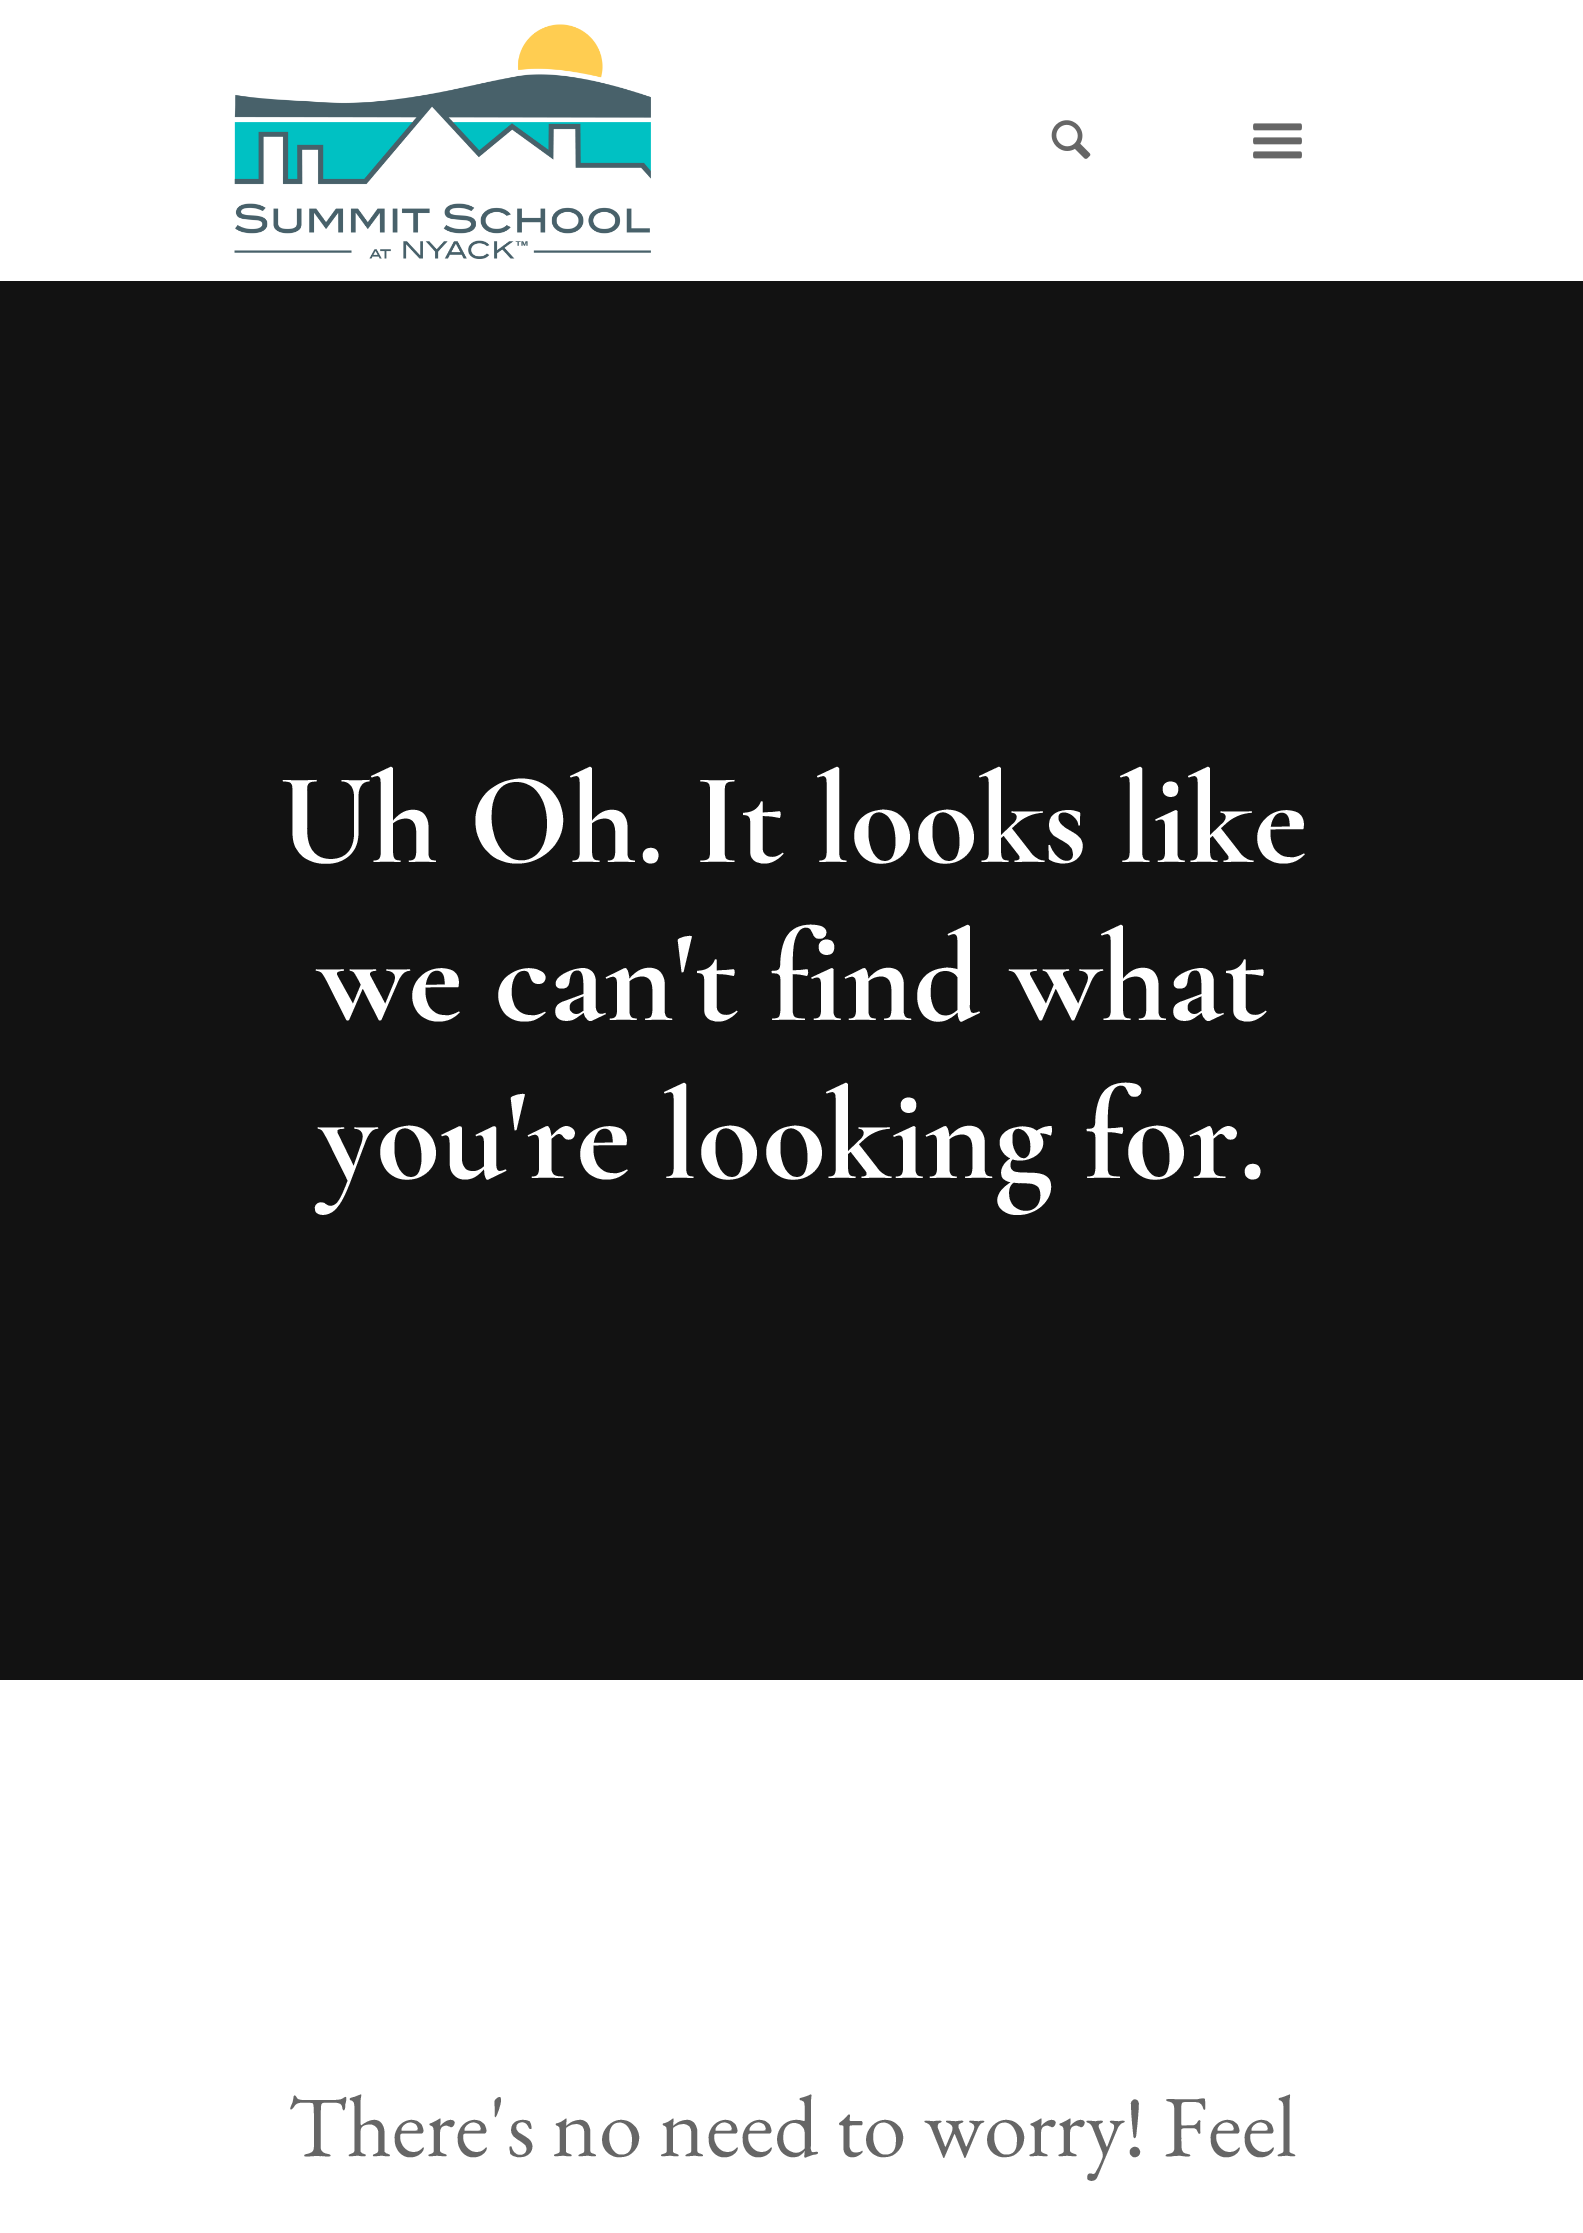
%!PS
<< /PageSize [1583 2233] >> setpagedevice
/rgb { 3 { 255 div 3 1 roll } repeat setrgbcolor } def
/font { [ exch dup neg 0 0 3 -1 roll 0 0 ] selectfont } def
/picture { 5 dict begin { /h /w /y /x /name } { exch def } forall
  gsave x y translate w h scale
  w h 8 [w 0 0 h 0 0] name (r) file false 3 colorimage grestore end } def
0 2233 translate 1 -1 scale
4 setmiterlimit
255 255 255 rgb
0 0 1583 2233 rectfill
(img/1.rgb) 234 24 417 235 picture
(img/2.rgb) 1051 120 40 39 picture
(img/3.rgb) 1253 123 49 36 picture
18 18 18 rgb
0 281 1583 1399 rectfill
/CormorantGaramond-Light 131.5 font
255 255 255 rgb
[
  [(Uh Oh. It looks like) 279 862]
  [(we can't find what) 318 1020]
  [(you're looking for.) 320 1178]
] { aload pop moveto show } forall
/EBGaramond-Regular 87.5 font
102 102 102 rgb
288 2156 moveto (There's no need to worry! Feel) show
showpage
